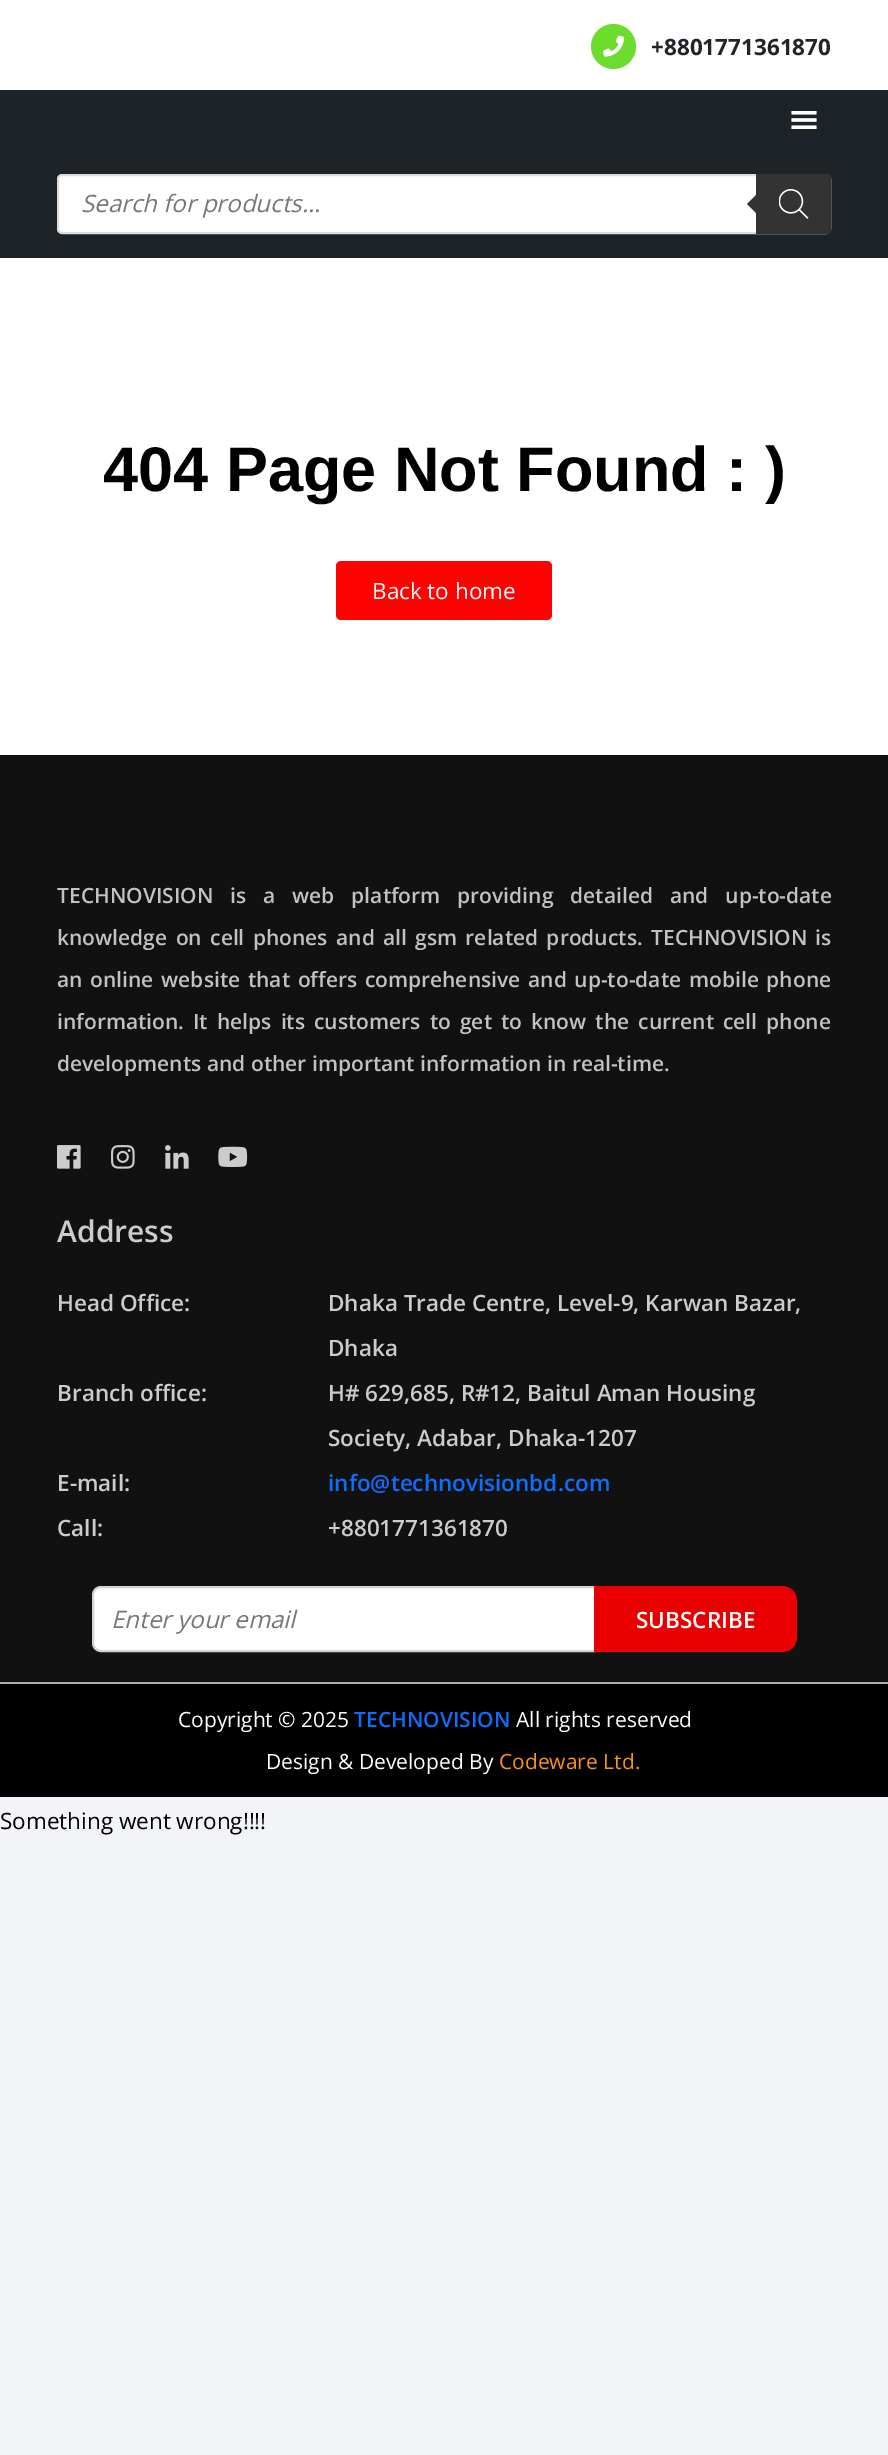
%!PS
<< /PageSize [888 2455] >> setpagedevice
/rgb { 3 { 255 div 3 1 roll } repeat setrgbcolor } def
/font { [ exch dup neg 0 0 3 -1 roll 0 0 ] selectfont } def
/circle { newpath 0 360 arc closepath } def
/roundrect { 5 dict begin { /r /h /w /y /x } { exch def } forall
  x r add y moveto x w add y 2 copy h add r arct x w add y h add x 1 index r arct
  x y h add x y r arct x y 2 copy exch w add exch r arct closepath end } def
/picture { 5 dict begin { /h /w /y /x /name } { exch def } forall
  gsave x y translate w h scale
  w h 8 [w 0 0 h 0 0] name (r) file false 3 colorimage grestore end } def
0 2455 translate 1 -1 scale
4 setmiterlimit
242 244 248 rgb
0 0 888 2455 rectfill
255 255 255 rgb
0 0 888 90 rectfill
108 220 45 rgb
613.5 46.5 22.5 circle fill
(img/1.rgb) 603 35 21 22 picture
29 35 39 rgb
0 90 888 168 rectfill
(img/2.rgb) 791 111 26 18 picture
255 255 255 rgb
58 175 772 58 4 roundrect gsave fill grestore
221 221 221 rgb
2 setlinewidth
stroke
51 51 51 rgb
756 174 moveto 828 174 lineto 829.5 174 831 175.5 831 177 curveto 831 231 lineto 831 232.5 829.5 234 828 234 curveto 756 234 lineto closepath fill
759 192 moveto 759 216 lineto 747 204 lineto closepath fill
(img/3.rgb) 779 189 30 30 picture
255 255 255 rgb
0 258 888 497 rectfill
255 2 2 rgb
336 561 216 59 5 roundrect fill
17 17 17 rgb
0 755 888 927 rectfill
(img/4.rgb) 57 1145 24 24 picture
(img/5.rgb) 111 1145 24 24 picture
(img/6.rgb) 165 1145 24 24 picture
(img/7.rgb) 218 1146 30 21 picture
255 255 255 rgb
101 1587 moveto 595 1587 lineto 595 1651 lineto 101 1651 lineto 96.5 1651 93 1647.5 93 1643 curveto 93 1595 lineto 93 1590.5 96.5 1587 101 1587 curveto closepath gsave fill grestore
206 212 218 rgb
stroke
234 0 0 rgb
594 1586 moveto 782 1586 lineto 790.5 1586 797 1592.5 797 1601 curveto 797 1637 lineto 797 1645.5 790.5 1652 782 1652 curveto 594 1652 lineto closepath fill
0 0 0 rgb
0 1684 888 113 rectfill
175 175 175 rgb
0 1682 888 2 rectfill
/OpenSans-Bold 22.5 font
33 37 41 rgb
651 55 moveto (+8801771361870) show
/OpenSans-Italic 24 font
119 119 119 rgb
81 212 moveto (Search for products...) show
/LiberationSans-Bold 63 font
0 0 0 rgb
103 491 moveto (404 Page Not Found : \)) show
/OpenSans-Regular 22.5 font
255 255 255 rgb
372 599 moveto (Back to home) show
/OpenSans-SemiBold 21 font
194 194 194 rgb
57 903 moveto 11.5 0 32 (TECHNOVISION is a web platform providing detailed and up-to-date) widthshow
57 945 moveto 3 0 32 (knowledge on cell phones and all) widthshow
415 945 moveto 3 0 32 (gsm related products. TECHNOVISION is) widthshow
57 987 moveto 2.25 0 32 (an online website that offers comprehensive and up-to-date) widthshow
689 987 moveto 2.25 0 32 (mobile phone) widthshow
57 1029 moveto 3.6 0 32 (information. It) widthshow
217 1029 moveto 3.6 0 32 (helps its customers to get to know the current cell phone) widthshow
57 1071 moveto (developments and other important information in real-time.) show
/OpenSans-SemiBold 30 font
204 204 204 rgb
57 1242 moveto (Address) show
/OpenSans-SemiBold 22.5 font
[
  [(Head Office:) 57 1311]
  [(Dhaka Trade Centre, Level-9, Karwan Bazar,) 328 1311]
  [(Dhaka) 328 1356]
  [(Branch office:) 57 1401]
  [(H# 629,685, R#12, Baitul Aman Housing) 328 1401]
  [(Society, Adabar, Dhaka-1207) 328 1446]
  [(E-mail:) 57 1491]
] { aload pop moveto show } forall
13 110 253 rgb
328 1491 moveto (info@technovisionbd.com) show
204 204 204 rgb
57 1536 moveto (Call:) show
328 1536 moveto (+8801771361870) show
/OpenSans-Italic 24 font
119 119 119 rgb
111 1628 moveto (Enter your email) show
/OpenSans-SemiBold 22.5 font
255 255 255 rgb
636 1628 moveto (SUBSCRIBE) show
/OpenSans-Regular 21 font
178 1727 moveto (Copyright © 2025) show
/OpenSans-SemiBold 21 font
13 110 253 rgb
354 1727 moveto (TECHNOVISION) show
/OpenSans-Regular 21 font
255 255 255 rgb
516 1727 moveto (All rights reserved) show
266 1769 moveto (Design & Developed By) show
247 148 29 rgb
499 1769 moveto (Codeware Ltd.) show
/OpenSans-Regular 22.5 font
0 0 0 rgb
0 1829 moveto (Something went wrong!!!!) show
showpage
